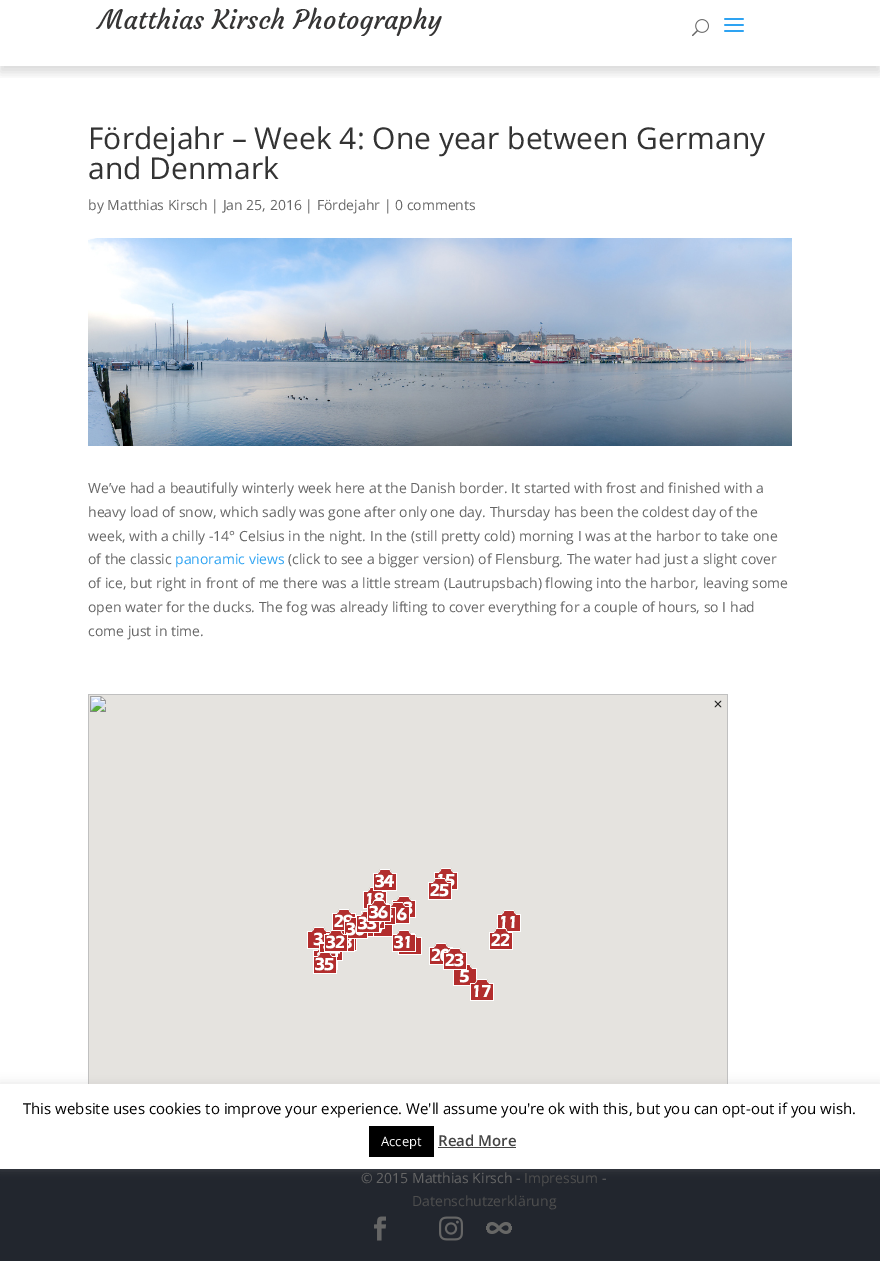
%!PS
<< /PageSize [880 1261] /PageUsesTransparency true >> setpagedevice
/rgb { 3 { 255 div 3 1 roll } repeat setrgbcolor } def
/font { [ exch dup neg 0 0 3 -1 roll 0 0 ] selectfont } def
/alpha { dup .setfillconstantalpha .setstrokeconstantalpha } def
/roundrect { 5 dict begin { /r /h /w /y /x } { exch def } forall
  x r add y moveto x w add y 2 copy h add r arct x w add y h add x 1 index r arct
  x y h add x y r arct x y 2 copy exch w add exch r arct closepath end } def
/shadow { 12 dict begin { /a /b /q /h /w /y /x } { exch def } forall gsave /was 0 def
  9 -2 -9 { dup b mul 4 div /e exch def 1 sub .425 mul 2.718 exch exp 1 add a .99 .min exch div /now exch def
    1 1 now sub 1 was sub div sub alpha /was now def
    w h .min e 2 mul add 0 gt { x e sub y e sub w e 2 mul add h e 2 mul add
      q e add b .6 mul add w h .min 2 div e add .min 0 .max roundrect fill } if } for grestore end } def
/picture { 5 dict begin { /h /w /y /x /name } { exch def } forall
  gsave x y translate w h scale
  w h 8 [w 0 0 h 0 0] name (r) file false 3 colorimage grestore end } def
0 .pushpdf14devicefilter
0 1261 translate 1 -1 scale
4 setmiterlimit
255 255 255 rgb
0 0 880 1261 rectfill
gsave
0 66 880 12 rectclip
0 0 0 rgb
0 6 880 66 0 5.5 0.15 shadow
grestore
(img/1.rgb) 95 7 347 29 picture
(img/2.rgb) 692 19 17 18 picture
(img/3.rgb) 724 18 20 14 picture
(img/4.rgb) 88 238 704 208 picture
(img/5.rgb) 88 694 640 390 picture
34 38 46 rgb
0 1169 880 92 rectfill
(img/6.rgb) 374 1216 12 25 picture
(img/7.rgb) 439 1216 24 25 picture
(img/8.rgb) 486 1222 26 12 picture
172 171 171 rgb
0 1083 880 85 0 5 0.3 shadow
[
  [0 1084 880 85 255 255 255]
  [369 1126 65 31 0 0 0]
  [438 1147 78 1 68 68 68]
] { aload pop rgb rectfill } forall
/OpenSans-Regular 30 font
51 51 51 rgb
88 149 moveto (Fördejahr – Week 4: One year between Germany) show
88 179 moveto (and Denmark) show
/OpenSans-Regular 14 font
102 102 102 rgb
[
  [(by Matthias Kirsch | Jan 25, 2016 | Fördejahr | 0 comments) 88 210]
  [(We’ve had a beautifully winterly week here at the Danish border. It started with frost and finished with a) 88 493]
  [(heavy load of snow, which sadly was gone after only one day. Thursday has been the coldest day of the) 88 517]
  [(week, with a chilly -14° Celsius in the night. In the \(still pretty cold\) morning I was at the harbor to take one) 88 541]
  [(of the classic) 88 564]
] { aload pop moveto show } forall
46 163 242 rgb
175 564 moveto (panoramic views) show
102 102 102 rgb
[
  [(\(click to see a bigger version\) of Flensburg. The water had just a slight cover) 288 564]
  [(of ice, but right in front of me there was a little stream \(Lautrupsbach\) flowing into the harbor, leaving some) 88 588]
  [(open water for the ducks. The fog was already lifting to cover everything for a couple of hours, so I had) 88 612]
  [(come just in time.) 88 636]
  [(© 2015 Matthias Kirsch -) 361 1183]
] { aload pop moveto show } forall
78 78 78 rgb
524 1183 moveto (Impressum) show
102 102 102 rgb
602 1183 moveto (-) show
78 78 78 rgb
412 1206 moveto (Datenschutzerklärung) show
/OpenSans-Regular 15 font
0 0 0 rgb
23 1114 moveto (This website uses cookies to improve your experience. We'll assume you're ok with this, but you can opt-out if you wish.) show
/OpenSans-Regular 13 font
255 255 255 rgb
381 1146 moveto (Accept) show
/OpenSans-SemiBold 15 font
68 68 68 rgb
438 1146 moveto (Read More) show
.poppdf14devicefilter showpage
